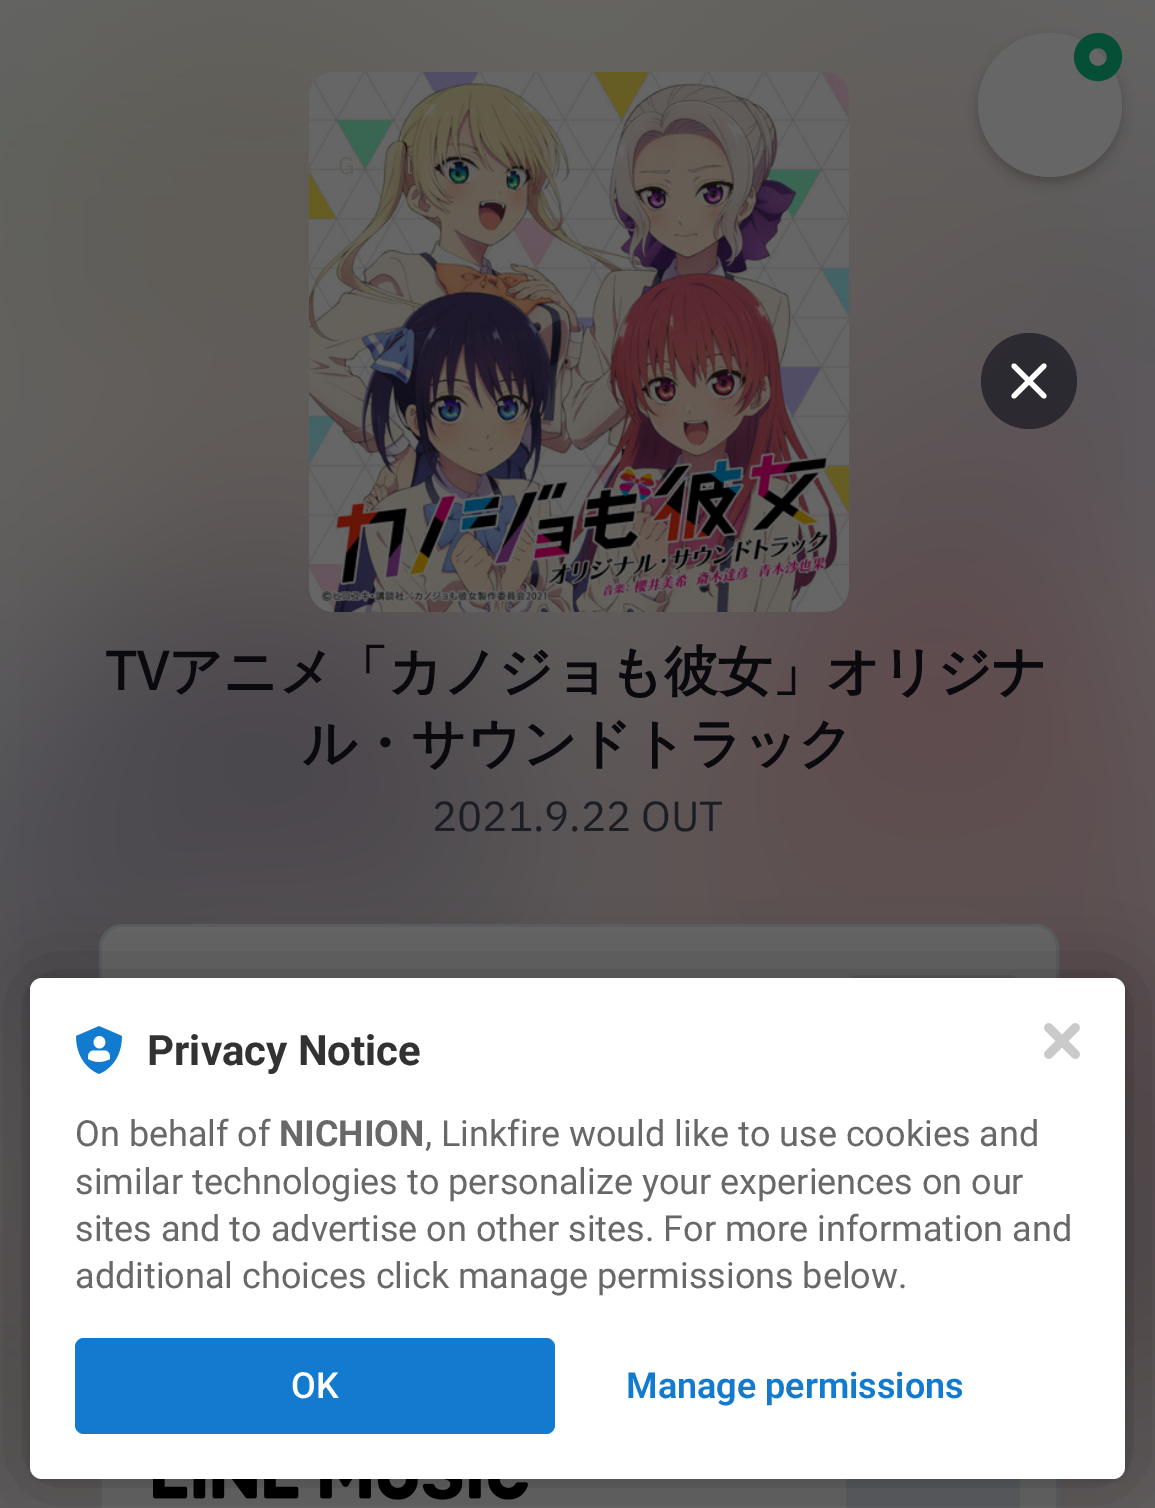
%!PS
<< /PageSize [1155 1508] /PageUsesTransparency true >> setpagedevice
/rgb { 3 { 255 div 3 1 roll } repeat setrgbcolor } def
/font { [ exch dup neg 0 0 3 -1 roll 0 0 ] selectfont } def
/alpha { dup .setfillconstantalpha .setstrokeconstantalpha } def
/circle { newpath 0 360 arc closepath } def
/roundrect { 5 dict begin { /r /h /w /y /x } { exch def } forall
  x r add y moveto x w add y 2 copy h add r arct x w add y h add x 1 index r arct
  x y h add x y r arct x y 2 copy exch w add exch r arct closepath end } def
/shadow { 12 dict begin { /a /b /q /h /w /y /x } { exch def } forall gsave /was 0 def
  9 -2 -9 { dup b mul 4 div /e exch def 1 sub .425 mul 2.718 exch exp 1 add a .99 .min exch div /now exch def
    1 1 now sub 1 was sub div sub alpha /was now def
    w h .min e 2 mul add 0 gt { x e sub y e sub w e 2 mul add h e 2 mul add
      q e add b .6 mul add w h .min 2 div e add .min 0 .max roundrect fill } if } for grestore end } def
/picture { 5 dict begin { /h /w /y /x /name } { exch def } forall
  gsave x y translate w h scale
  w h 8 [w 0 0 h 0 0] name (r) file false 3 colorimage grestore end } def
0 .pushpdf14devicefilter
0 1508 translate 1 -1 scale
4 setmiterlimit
102 102 102 rgb
0 0 1155 1508 rectfill
(img/1.rgb) 0 0 1155 1508 picture
(img/2.rgb) 309 72 540 540 picture
92 94 97 rgb
3 setlinewidth
100.5 925.5 957 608 22.5 roundrect stroke
102 102 102 rgb
102 927 954 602 21 roundrect fill
92 94 97 rgb
846 975 174 120 12 roundrect fill
(img/3.rgb) 153 1479 375 21 picture
846 1479 174 29 rectfill
0 0 0 rgb
978 39 144 144 72 6 0.2 shadow
102 102 102 rgb
1050 105 72 circle fill
5 79 54 rgb
15 setlinewidth
1098 57 16.5 circle stroke
0.7 alpha
24 23 33 rgb
1029 381 48 circle fill
1 alpha
255 255 255 rgb
5.1 setlinewidth
1 setlinecap
1 setlinejoin
1014 366 moveto 1044 396 lineto 1014 396 moveto 1044 366 lineto stroke
0 0 0 rgb
30 978 1095 501 12 6 0.12 shadow
30 978 1095 501 12 36 0.3 shadow
255 255 255 rgb
30 978 1095 501 12 roundrect fill
(img/4.rgb) 1044 1023 36 36 picture
(img/5.rgb) 76 1026 46 48 picture
19 123 207 rgb
75 1338 480 96 9 roundrect fill
/IBMPlexSans-Regular 24 font
94 91 84 rgb
338 174 moveto (G) show
406 174 moveto (l) show
/IBMPlexSans-Bold 54 font
10 9 13 rgb
105 690 moveto (TV) show
/WenQuanYiZenHei-Bold 54 font
168 690 moveto (アニメ「カノジョも彼女」オリジナ) show
302 762 moveto (ル・サウンドトラック) show
/IBMPlexSans-Regular 42 font
28 30 38 rgb
432 831 moveto (2021.9.22 OUT) show
/Roboto-Bold 42 font
50 50 50 rgb
147 1065 moveto (Privacy Notice) show
/Roboto-Regular 36 font
104 104 104 rgb
75 1146 moveto (On behalf of) show
/Roboto-Bold 36 font
279 1146 moveto (NICHION) show
/Roboto-Regular 36 font
[
  [(, Linkfire would like to use cookies and) 425 1146]
  [(similar technologies to personalize your experiences on our) 75 1194]
  [(sites and to advertise on other sites. For more information and) 75 1241]
  [(additional choices click manage permissions below.) 75 1288]
] { aload pop moveto show } forall
/Roboto-Medium 36 font
255 255 255 rgb
291 1398 moveto (OK) show
/Roboto-SemiBold 36 font
19 123 207 rgb
626 1398 moveto (Manage permissions) show
.poppdf14devicefilter showpage
